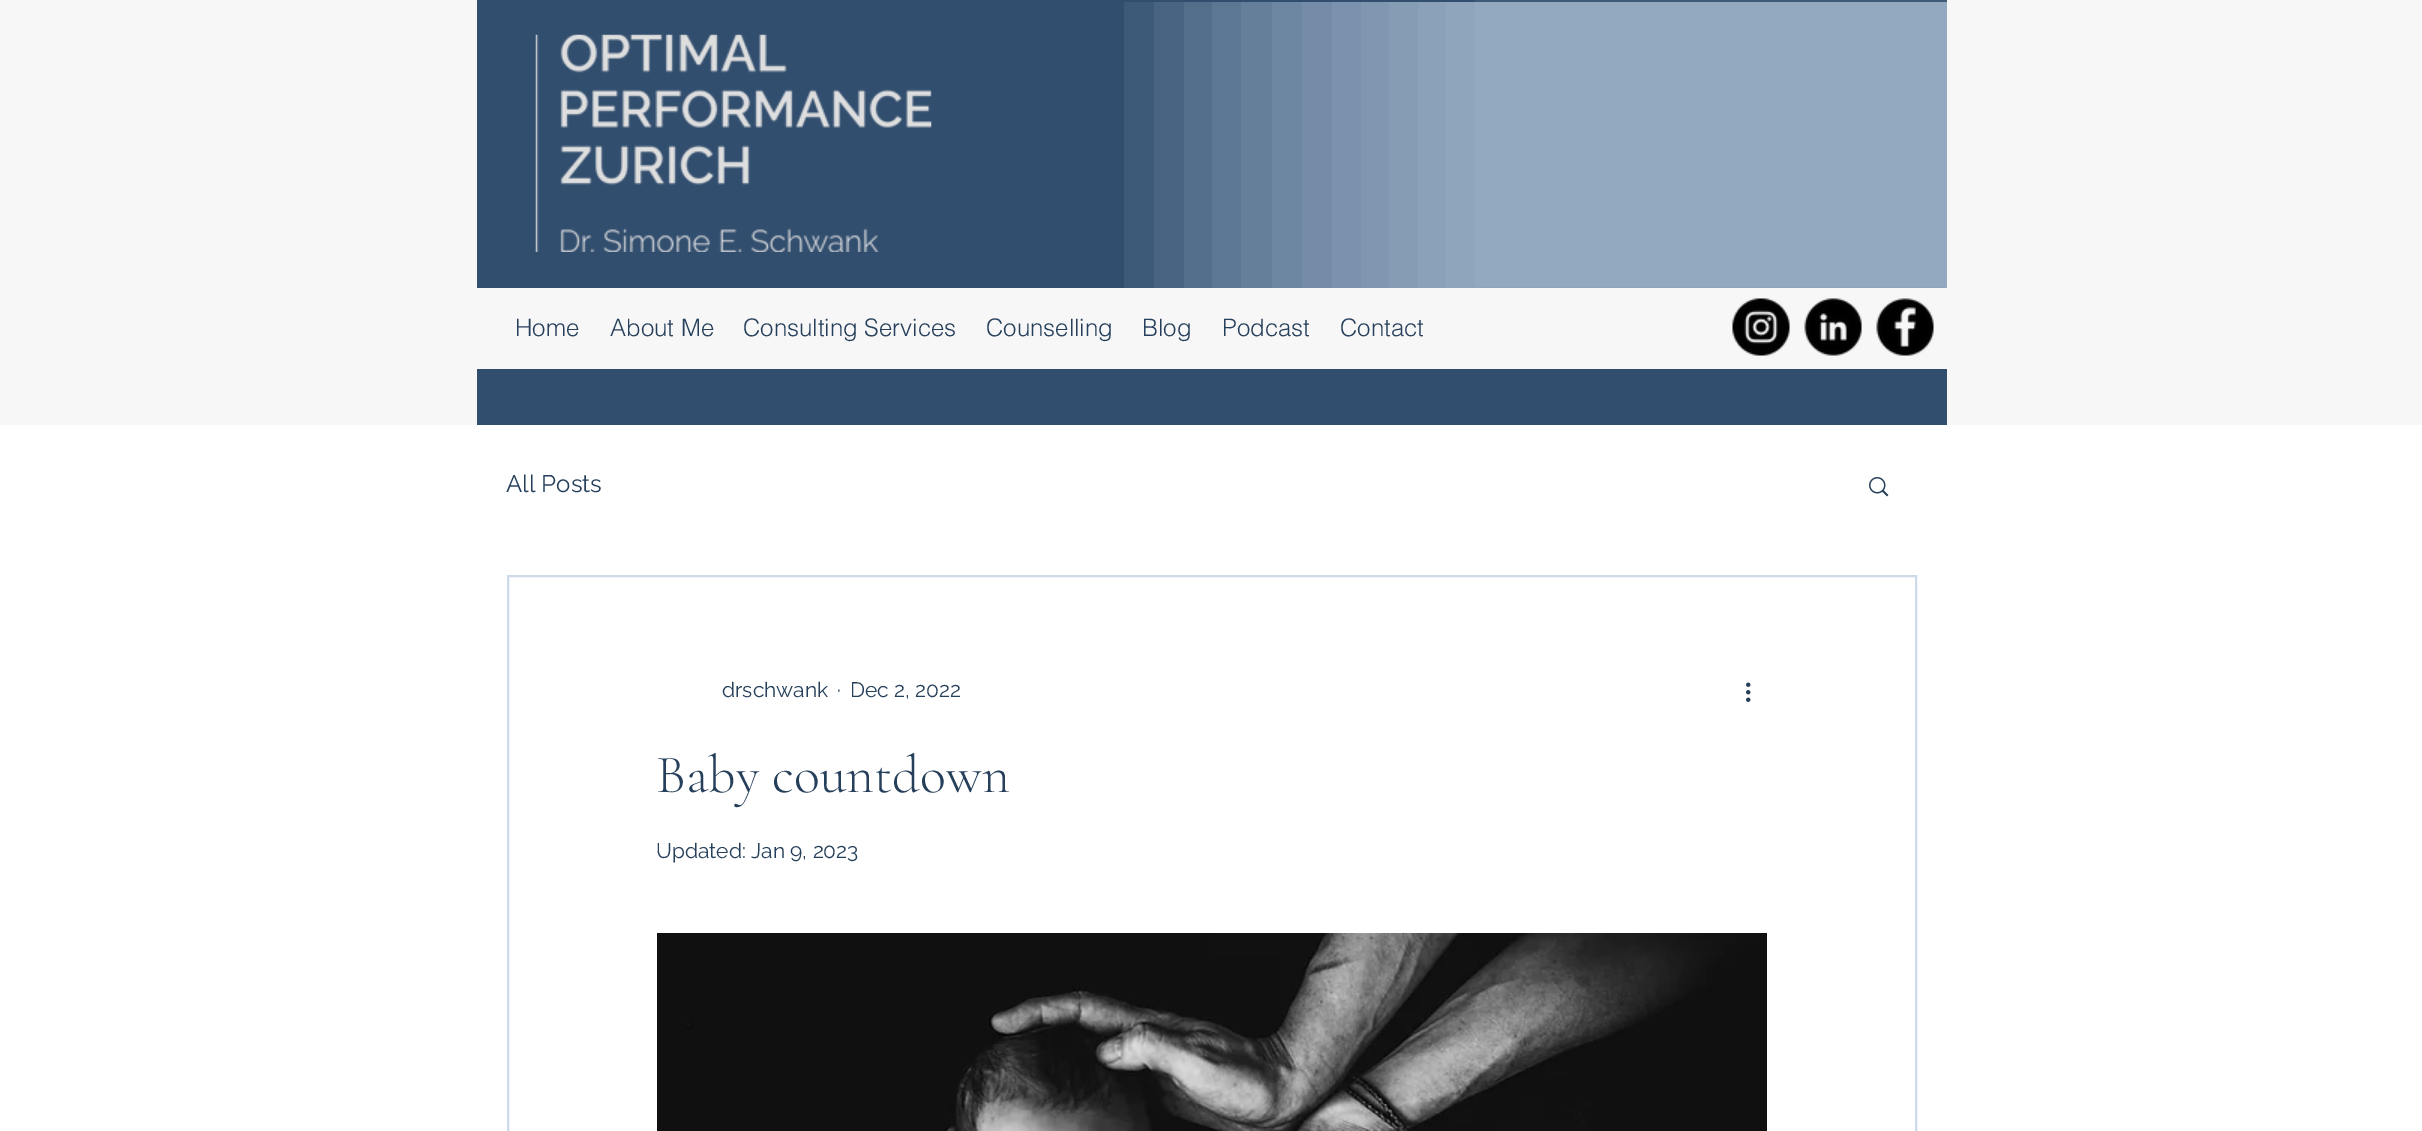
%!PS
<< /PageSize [2422 1131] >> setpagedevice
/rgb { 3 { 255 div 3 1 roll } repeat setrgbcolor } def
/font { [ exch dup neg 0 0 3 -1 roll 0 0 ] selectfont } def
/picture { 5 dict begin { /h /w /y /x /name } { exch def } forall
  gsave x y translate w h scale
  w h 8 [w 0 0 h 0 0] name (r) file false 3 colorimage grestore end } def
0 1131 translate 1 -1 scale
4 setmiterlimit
255 255 255 rgb
0 0 2422 1131 rectfill
[
  [0 0 2422 425 247 247 247]
  [477 0 1470 425 50 78 110]
  [1475 0 472 2 62 90 121]
] { aload pop rgb rectfill } forall
(img/1.rgb) 535 34 397 218 picture
[
  [1124 2 30 286 62 90 121]
  [1154 2 30 286 73 100 130]
  [1184 2 28 286 83 110 139]
  [1212 2 29 286 92 119 147]
  [1241 2 31 286 101 127 155]
  [1272 2 30 286 109 134 162]
  [1302 2 30 286 116 140 168]
  [1332 2 29 286 122 146 173]
  [1361 2 28 286 128 151 177]
  [1389 2 29 286 133 156 181]
  [1418 2 28 286 138 161 185]
  [1446 2 501 286 143 165 188]
  [1475 2 472 285 147 169 192]
  [477 288 1470 81 247 247 247]
] { aload pop rgb rectfill } forall
(img/2.rgb) 1732 298 58 58 picture
(img/3.rgb) 1804 298 58 58 picture
(img/4.rgb) 1876 298 58 58 picture
(img/5.rgb) 1869 477 20 20 picture
205 218 234 rgb
2 setlinewidth
508 576 1408 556 rectstroke
(img/6.rgb) 1746 682 5 20 picture
(img/7.rgb) 657 933 1110 198 picture
/helvetica-Light 24 font
38 63 91 rgb
[
  [(Home) 515 336]
  [(About Me) 610 336]
  [(Consulting Services) 743 336]
  [(Counselling) 986 336]
  [(Blog) 1142 336]
  [(Podcast) 1222 336]
  [(Contact) 1340 336]
] { aload pop moveto show } forall
/Raleway-Regular 24 font
506 492 moveto (All Posts) show
/Raleway-Regular 21 font
[
  [(drschwank) 722 697]
  [(·) 837 697]
  [(Dec 2, 2022) 850 697]
] { aload pop moveto show } forall
/CormorantGaramond-Light 54 font
656 792 moveto (Baby countdown) show
/Raleway-Regular 21 font
656 858 moveto (Updated: Jan 9, 2023) show
showpage
